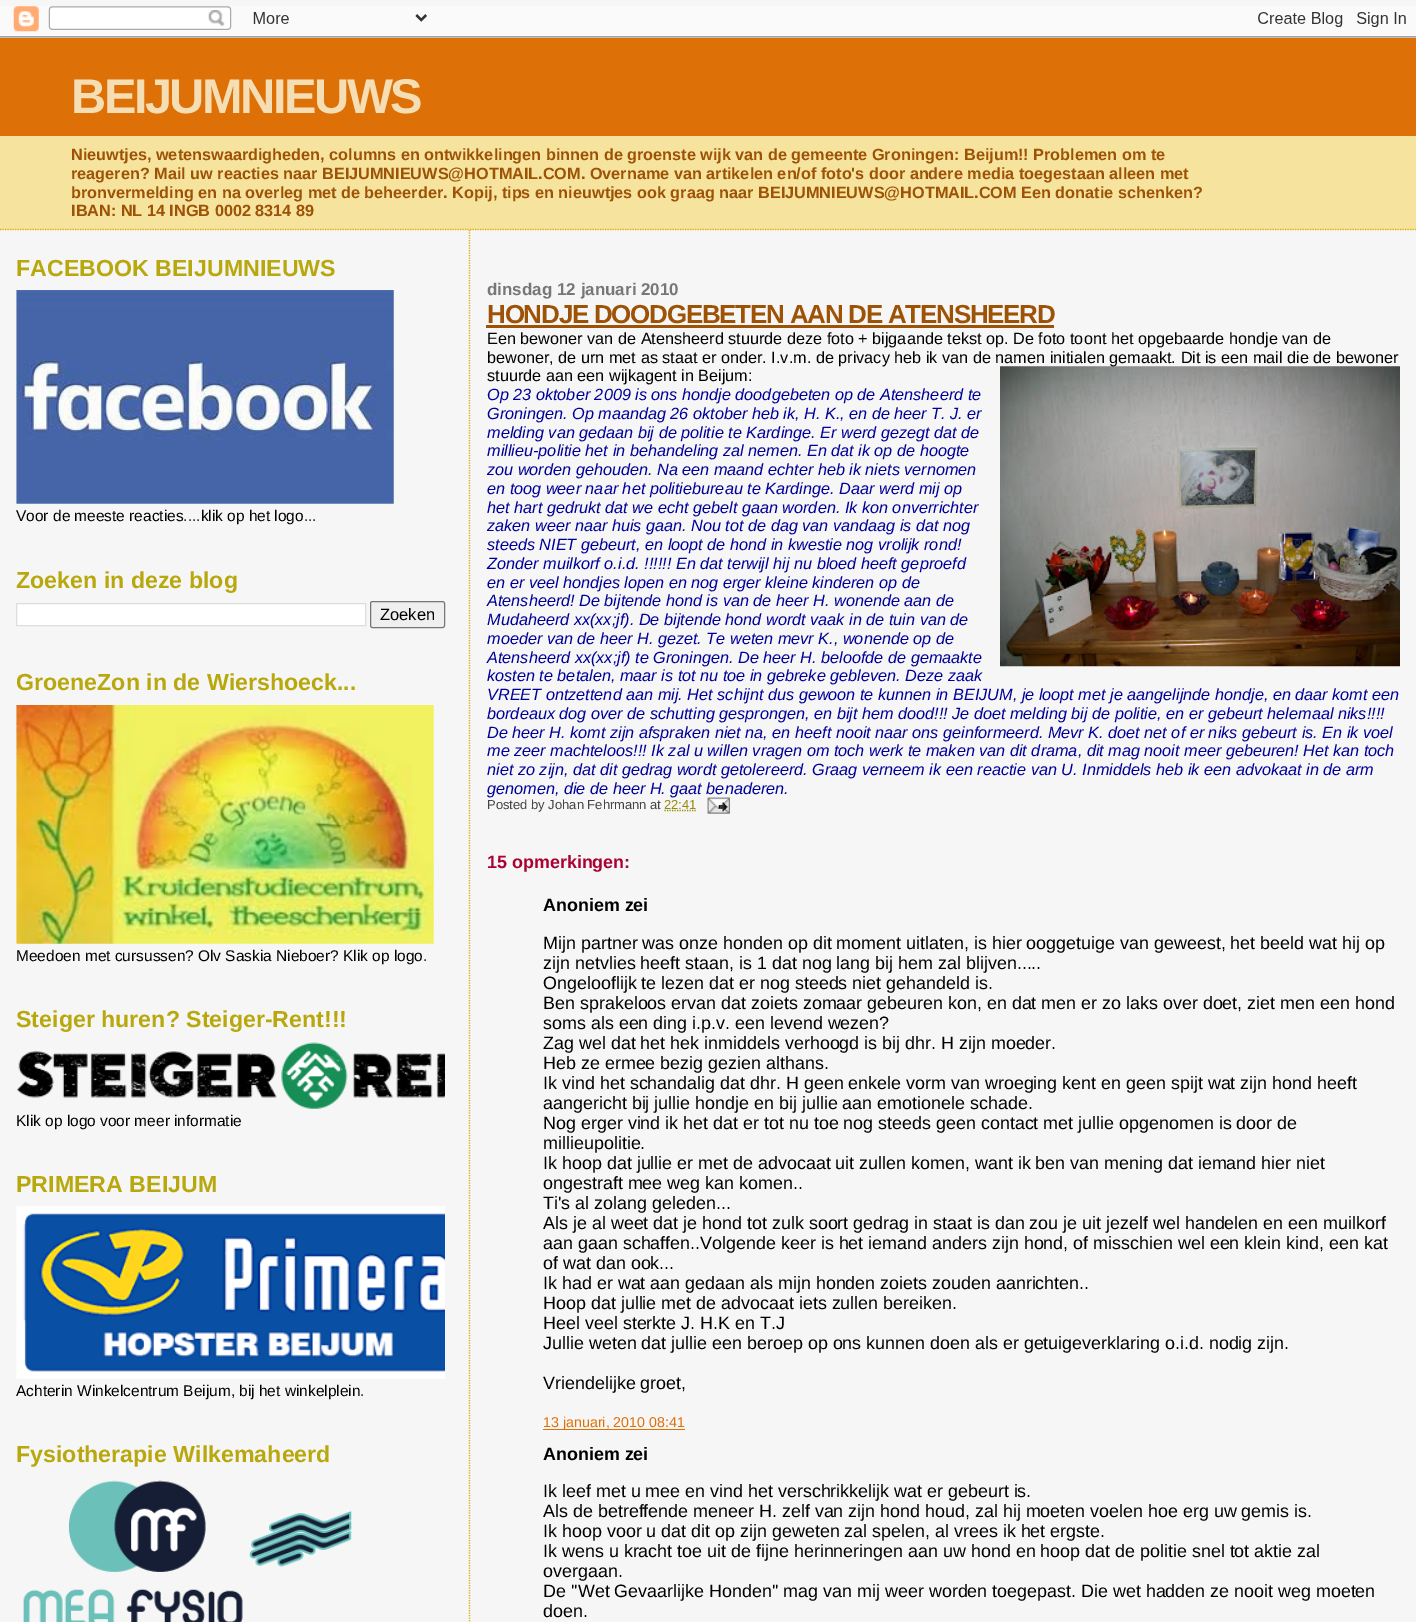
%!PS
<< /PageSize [1416 1622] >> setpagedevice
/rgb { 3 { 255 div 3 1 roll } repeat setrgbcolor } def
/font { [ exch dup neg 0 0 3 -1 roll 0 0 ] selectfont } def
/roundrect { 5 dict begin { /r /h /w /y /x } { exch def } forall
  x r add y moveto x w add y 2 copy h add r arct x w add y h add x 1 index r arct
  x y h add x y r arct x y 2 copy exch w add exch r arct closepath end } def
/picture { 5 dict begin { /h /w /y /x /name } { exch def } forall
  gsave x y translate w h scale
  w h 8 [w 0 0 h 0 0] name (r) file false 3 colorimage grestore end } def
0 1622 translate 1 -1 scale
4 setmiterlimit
246 246 246 rgb
0 0 1416 1622 rectfill
(img/1.rgb) 0 6 1416 32 picture
245 227 158 rgb
0 136 1416 94 rectfill
224 173 18 rgb
1.2 setlinewidth
[1.25 1.25] 0 setdash
0 229.5 moveto 1416 229.5 lineto stroke
222 112 8 rgb
0 38 1416 98 rectfill
(img/2.rgb) 16 290 378 214 picture
255 255 255 rgb
16.5 603.5 moveto 365.5 603.5 lineto 365.5 625.5 lineto 16.5 625.5 lineto closepath gsave fill grestore
221 221 221 rgb
1 setlinewidth
[] 0 setdash
stroke
239 239 239 rgb
370.5 601.5 74 26 2 roundrect gsave fill grestore
118 118 118 rgb
stroke
(img/3.rgb) 16 705 418 239 picture
(img/4.rgb) 17 1042 428 67 picture
(img/5.rgb) 16 1206 429 173 picture
(img/6.rgb) 23 1480 330 142 picture
224 173 18 rgb
1.2 setlinewidth
[1.25 1.25] 0 setdash
469.5 230 moveto 469.5 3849 lineto stroke
158 82 5 rgb
486 325 568 3 rectfill
(img/7.rgb) 1000 366 400 301 picture
150 138 10 rgb
664.5 810.5 moveto 697 810.5 lineto stroke
222 112 8 rgb
543 1429 142 1 rectfill
/LiberationSans-Bold 48.75 font
245 222 179 rgb
71 113 moveto -2.5 0 (BEIJUMNIEUWS) ashow
/LiberationSans-Bold 16.25 font
158 82 5 rgb
[
  [(Nieuwtjes, wetenswaardigheden, columns en ontwikkelingen binnen de groenste wijk van de gemeente Groningen: Beijum!! Problemen om te) 71 160]
  [(reageren? Mail uw reacties naar BEIJUMNIEUWS@HOTMAIL.COM. Overname van artikelen en/of foto's door andere media toegestaan alleen met) 71 179]
  [(bronvermelding en na overleg met de beheerder. Kopij, tips en nieuwtjes ook graag naar BEIJUMNIEUWS@HOTMAIL.COM Een donatie schenken?) 71 198]
  [(IBAN: NL 14 INGB 0002 8314 89) 71 216]
] { aload pop moveto show } forall
/LiberationSans-Bold 23.2 font
184 168 13 rgb
16 276 moveto (FACEBOOK BEIJUMNIEUWS) show
/LiberationSans-Regular 15.45 font
0 0 0 rgb
16 521 moveto (Voor de meeste reacties....klik op het logo...) show
/LiberationSans-Bold 23.2 font
184 168 13 rgb
16 588 moveto (Zoeken in deze blog) show
/LiberationSans-Regular 16.5 font
0 0 0 rgb
380 620 moveto (Zoeken) show
/LiberationSans-Bold 23.2 font
184 168 13 rgb
16 690 moveto (GroeneZon in de Wiershoeck...) show
/LiberationSans-Regular 15.45 font
0 0 0 rgb
16 961 moveto (Meedoen met cursussen? Olv Saskia Nieboer? Klik op logo.) show
/LiberationSans-Bold 23.2 font
184 168 13 rgb
16 1027 moveto (Steiger huren? Steiger-Rent!!!) show
/LiberationSans-Regular 15.45 font
0 0 0 rgb
16 1126 moveto (Klik op logo voor meer informatie) show
/LiberationSans-Bold 23.2 font
184 168 13 rgb
16 1192 moveto (PRIMERA BEIJUM) show
/LiberationSans-Regular 15.45 font
0 0 0 rgb
16 1396 moveto (Achterin Winkelcentrum Beijum, bij het winkelplein.) show
/LiberationSans-Bold 23.2 font
184 168 13 rgb
16 1462 moveto (Fysiotherapie Wilkemaheerd) show
/LiberationSans-Bold 17 font
119 119 119 rgb
487 295 moveto (dinsdag 12 januari 2010) show
/LiberationSans-Bold 26 font
158 82 5 rgb
487 323 moveto -1.25 0 (HONDJE DOODGEBETEN AAN DE ATENSHEERD) ashow
/LiberationSans-Regular 16.25 font
0 0 0 rgb
[
  [(Een bewoner van de Atensheerd stuurde deze foto + bijgaande tekst op. De foto toont het opgebaarde hondje van de) 487 344]
  [(bewoner, de urn met as staat er onder. I.v.m. de privacy heb ik van de namen initialen gemaakt. Dit is een mail die de bewoner) 487 363]
  [(stuurde aan een wijkagent in Beijum:) 487 381]
] { aload pop moveto show } forall
/LiberationSans-Italic 16.25 font
0 0 153 rgb
[
  [(Op 23 oktober 2009 is ons hondje doodgebeten op de Atensheerd te) 487 400]
  [(Groningen. Op maandag 26 oktober heb ik, H. K., en de heer T. J. er) 487 419]
  [(melding van gedaan bij de politie te Kardinge. Er werd gezegt dat de) 487 438]
  [(millieu-politie het in behandeling zal nemen. En dat ik op de hoogte) 487 456]
  [(zou worden gehouden. Na een maand echter heb ik niets vernomen) 487 475]
  [(en toog weer naar het politiebureau te Kardinge. Daar werd mij op) 487 494]
  [(het hart gedrukt dat we echt gebelt gaan worden. Ik kon onverrichter) 487 513]
  [(zaken weer naar huis gaan. Nou tot de dag van vandaag is dat nog) 487 531]
  [(steeds NIET gebeurt, en loopt de hond in kwestie nog vrolijk rond!) 487 550]
  [(Zonder muilkorf o.i.d. !!!!!! En dat terwijl hij nu bloed heeft geproefd) 487 569]
  [(en er veel hondjes lopen en nog erger kleine kinderen op de) 487 588]
  [(Atensheerd! De bijtende hond is van de heer H. wonende aan de) 487 606]
  [(Mudaheerd xx\(xx;jf\). De bijtende hond wordt vaak in de tuin van de) 487 625]
  [(moeder van de heer H. gezet. Te weten mevr K., wonende op de) 487 644]
  [(Atensheerd xx\(xx;jf\) te Groningen. De heer H. beloofde de gemaakte) 487 663]
  [(kosten te betalen, maar is tot nu toe in gebreke gebleven. Deze zaak) 487 681]
  [(VREET ontzettend aan mij. Het schijnt dus gewoon te kunnen in BEIJUM, je loopt met je aangelijnde hondje, en daar komt een) 487 700]
  [(bordeaux dog over de schutting gesprongen, en bijt hem dood!!! Je doet melding bij de politie, en er gebeurt helemaal niks!!!!) 487 719]
  [(De heer H. komt zijn afspraken niet na, en heeft nooit naar ons geinformeerd. Mevr K. doet net of er niks gebeurt is. En ik voel) 487 738]
  [(me zeer machteloos!!! Ik zal u willen vragen om toch werk te maken van dit drama, dit mag nooit meer gebeuren! Het kan toch) 487 756]
  [(niet zo zijn, dat dit gedrag wordt getolereerd. Graag verneem ik een reactie van U. Inmiddels heb ik een advokaat in de arm) 487 775]
  [(genomen, die de heer H. gaat benaderen.) 487 794]
] { aload pop moveto show } forall
/LiberationSans-Regular 13 font
68 68 68 rgb
487 809 moveto (Posted by Johan Fehrmann at) show
150 138 10 rgb
664 809 moveto (22:41) show
(img/8.rgb) 707 797 23 17 picture
/LiberationSans-Bold 17.9 font
170 0 51 rgb
487 868 moveto (15 opmerkingen:) show
0 0 0 rgb
543 911 moveto (Anoniem zei) show
/LiberationSans-Regular 17.9 font
[
  [(Mijn partner was onze honden op dit moment uitlaten, is hier ooggetuige van geweest, het beeld wat hij op) 543 949]
  [(zijn netvlies heeft staan, is 1 dat nog lang bij hem zal blijven.....) 543 969]
  [(Ongelooflijk te lezen dat er nog steeds niet gehandeld is.) 543 989]
  [(Ben sprakeloos ervan dat zoiets zomaar gebeuren kon, en dat men er zo laks over doet, ziet men een hond) 543 1009]
  [(soms als een ding i.p.v. een levend wezen?) 543 1029]
  [(Zag wel dat het hek inmiddels verhoogd is bij dhr. H zijn moeder.) 543 1049]
  [(Heb ze ermee bezig gezien althans.) 543 1069]
  [(Ik vind het schandalig dat dhr. H geen enkele vorm van wroeging kent en geen spijt wat zijn hond heeft) 543 1089]
  [(aangericht bij jullie hondje en bij jullie aan emotionele schade.) 543 1109]
  [(Nog erger vind ik het dat er tot nu toe nog steeds geen contact met jullie opgenomen is door de) 543 1129]
  [(millieupolitie.) 543 1149]
  [(Ik hoop dat jullie er met de advocaat uit zullen komen, want ik ben van mening dat iemand hier niet) 543 1169]
  [(ongestraft mee weg kan komen..) 543 1189]
  [(Ti's al zolang geleden...) 543 1209]
  [(Als je al weet dat je hond tot zulk soort gedrag in staat is dan zou je uit jezelf wel handelen en een muilkorf) 543 1229]
  [(aan gaan schaffen..Volgende keer is het iemand anders zijn hond, of misschien wel een klein kind, een kat) 543 1249]
  [(of wat dan ook...) 543 1269]
  [(Ik had er wat aan gedaan als mijn honden zoiets zouden aanrichten..) 543 1289]
  [(Hoop dat jullie met de advocaat iets zullen bereiken.) 543 1309]
  [(Heel veel sterkte J. H.K en T.J) 543 1329]
  [(Jullie weten dat jullie een beroep op ons kunnen doen als er getuigeverklaring o.i.d. nodig zijn.) 543 1349]
  [(Vriendelijke groet,) 543 1389]
] { aload pop moveto show } forall
/LiberationSans-Regular 14.25 font
222 112 8 rgb
543 1427 moveto (13 januari, 2010 08:41) show
/LiberationSans-Bold 17.9 font
0 0 0 rgb
543 1460 moveto (Anoniem zei) show
/LiberationSans-Regular 17.9 font
[
  [(Ik leef met u mee en vind het verschrikkelijk wat er gebeurt is.) 543 1497]
  [(Als de betreffende meneer H. zelf van zijn hond houd, zal hij moeten voelen hoe erg uw gemis is.) 543 1517]
  [(Ik hoop voor u dat dit op zijn geweten zal spelen, al vrees ik het ergste.) 543 1537]
  [(Ik wens u kracht toe uit de fijne herinneringen aan uw hond en hoop dat de politie snel tot aktie zal) 543 1557]
  [(overgaan.) 543 1577]
  [(De ''Wet Gevaarlijke Honden'' mag van mij weer worden toegepast. Die wet hadden ze nooit weg moeten) 543 1597]
  [(doen.) 543 1617]
] { aload pop moveto show } forall
showpage
